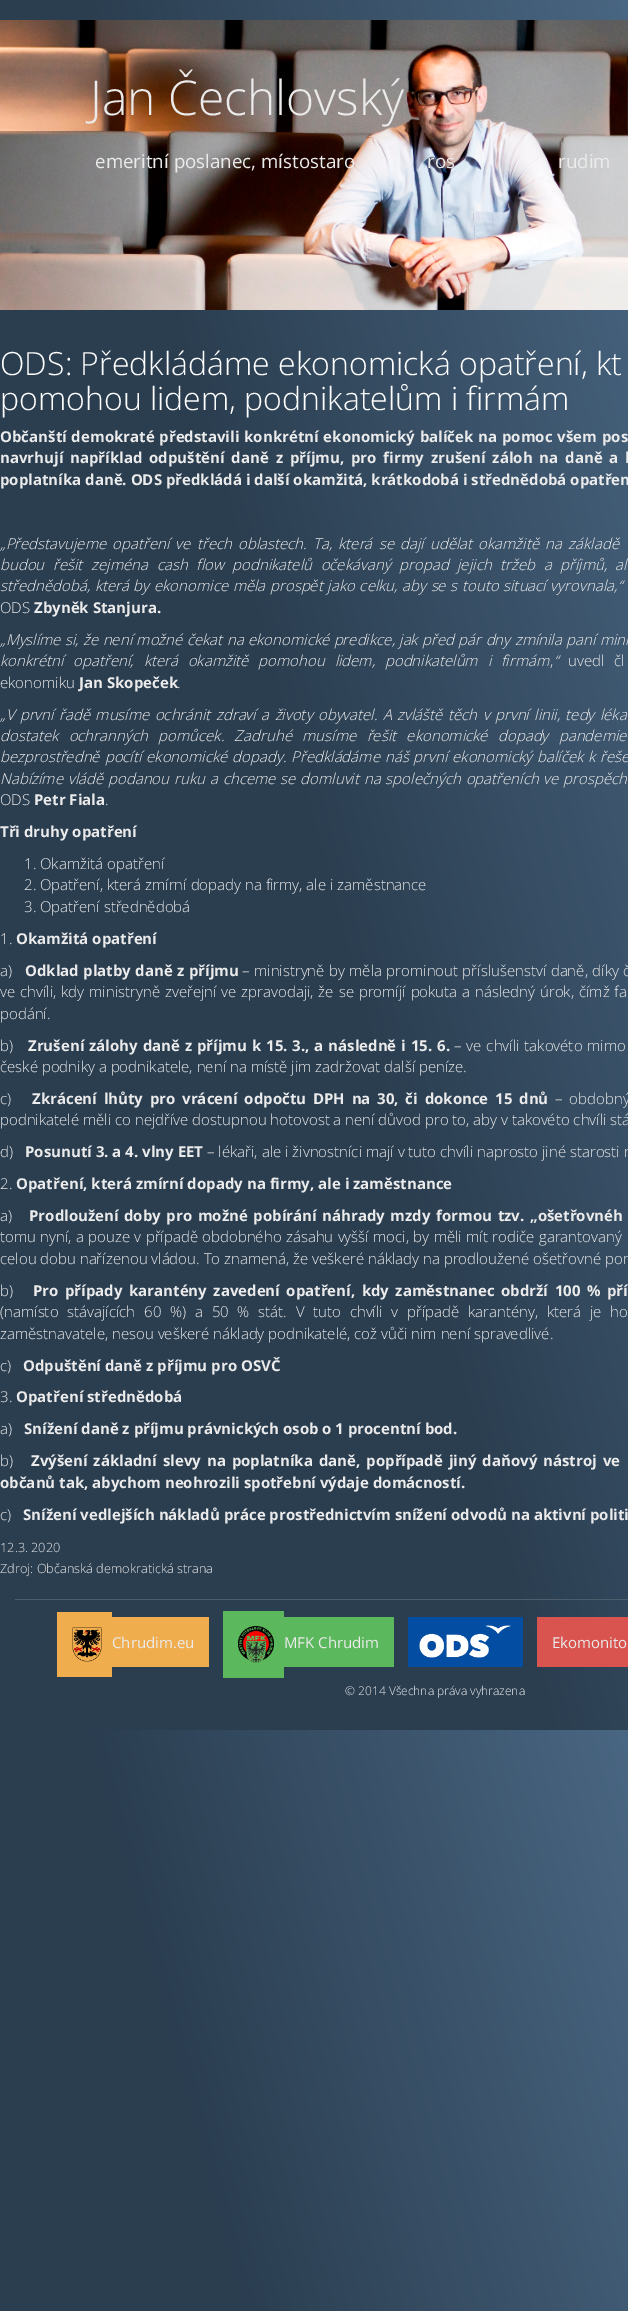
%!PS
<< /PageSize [628 2311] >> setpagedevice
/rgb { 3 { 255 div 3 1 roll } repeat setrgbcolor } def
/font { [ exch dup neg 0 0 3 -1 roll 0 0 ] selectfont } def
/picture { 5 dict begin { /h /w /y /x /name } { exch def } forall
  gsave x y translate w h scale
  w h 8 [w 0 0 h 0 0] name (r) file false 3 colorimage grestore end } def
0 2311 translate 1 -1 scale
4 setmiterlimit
255 255 255 rgb
0 0 628 2311 rectfill
gsave 0 0 moveto 628 0 lineto 628 1730 lineto 0 1730 lineto closepath clip newpath
<< /ShadingType 2 /ColorSpace /DeviceRGB /Coords [-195 1001 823 729] /Extend [true true] /Function << /FunctionType 3 /Domain [0 1] /Functions [<< /FunctionType 2 /Domain [0 1] /C0 [0.169 0.243 0.314] /C1 [0.169 0.243 0.314] /N 1 >> << /FunctionType 2 /Domain [0 1] /C0 [0.169 0.243 0.314] /C1 [0.286 0.4 0.51] /N 1 >>] /Bounds [0.5] /Encode [0 1 0 1] >> >> shfill grestore
gsave 0 1730 moveto 628 1730 lineto 628 2311 lineto 0 2311 lineto closepath clip newpath
<< /ShadingType 2 /ColorSpace /DeviceRGB /Coords [-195 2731 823 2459] /Extend [true true] /Function << /FunctionType 3 /Domain [0 1] /Functions [<< /FunctionType 2 /Domain [0 1] /C0 [0.169 0.243 0.314] /C1 [0.169 0.243 0.314] /N 1 >> << /FunctionType 2 /Domain [0 1] /C0 [0.169 0.243 0.314] /C1 [0.286 0.4 0.51] /N 1 >>] /Bounds [0.5] /Encode [0 1 0 1] >> >> shfill grestore
(img/1.rgb) 0 20 628 290 picture
78 93 108 rgb
15 1599 613 1 rectfill
240 173 78 rgb
57 1612 55 65 rectfill
(img/2.rgb) 72 1627 30 35 picture
112 1617 97 50 rectfill
92 184 92 rgb
223 1611 61 67 rectfill
(img/3.rgb) 238 1626 36 37 picture
284 1617 110 50 rectfill
(img/4.rgb) 408 1617 115 50 picture
217 83 79 rgb
537 1617 91 50 rectfill
/OpenSans-Light 48 font
235 235 235 rgb
90 115 moveto (Jan Čechlovský) show
/OpenSans-Regular 18.75 font
[
  [(emeritní poslanec, místostaro) 95 168]
  [(ros) 427 168]
  [(rudim) 558 168]
] { aload pop moveto show } forall
/OpenSans-Light 32 font
255 255 255 rgb
0 375 moveto (ODS: Předkládáme ekonomická opatření, kt) show
0 410 moveto (pomohou lidem, podnikatelům i firmám) show
/OpenSans-Bold 15 font
235 235 235 rgb
0 442 moveto 1 0 32 (Občanští demokraté představili konkrétní ekonomický balíček na pomoc všem pos) widthshow
0 463 moveto 3 0 32 (navrhují například odpuštění daně z příjmu, pro firmy zrušení záloh na daně a l) widthshow
0 485 moveto (poplatníka daně. ODS předkládá i další okamžitá, krátkodobá i střednědobá opatřen) show
/OpenSans-LightItalic 15 font
0 549 moveto 2.25 0 32 („Představujeme opatření ve třech oblastech. Ta, která se dají udělat okamžitě na základě) widthshow
0 570 moveto 4.75 0 32 (budou řešit zejména cash flow podnikatelů očekávaný propad jejich tržeb a příjmů,) widthshow
615 570 moveto 4.75 0 32 (al) widthshow
0 591 moveto 0.75 0 32 (střednědobá, která by ekonomice měla prospět jako celku, aby se s touto situací vyrovnala,) widthshow
618 591 moveto (“) show
/OpenSans-Light 15 font
0 613 moveto (ODS) show
/OpenSans-Bold 15 font
34 613 moveto (Zbyněk Stanjura.) show
/OpenSans-LightItalic 15 font
0 645 moveto 0.5 0 32 („Myslíme si, že není možné čekat na ekonomické predikce, jak před pár dny zmínila paní mini) widthshow
0 666 moveto 6 0 32 (konkrétní opatření, která okamžitě pomohou lidem, podnikatelům i firmám) widthshow
554 666 moveto (“) show
/OpenSans-Light 15 font
568 666 moveto 6 0 32 (uvedl čl) widthshow
550 666 moveto (,) show
0 688 moveto (ekonomiku) show
/OpenSans-Bold 15 font
79 688 moveto (Jan Skopeček) show
/OpenSans-Light 15 font
177 688 moveto (.) show
/OpenSans-LightItalic 15 font
0 720 moveto 1.5 0 32 („V první řadě musíme ochránit zdraví a životy obyvatel. A zvláště těch v první linii, tedy léka) widthshow
0 741 moveto 6.5 0 32 (dostatek ochranných pomůcek. Zadruhé musíme řešit ekonomické dopady pandemie) widthshow
0 762 moveto 1 0 32 (bezprostředně pocítí ekonomické dopady. Předkládáme náš první ekonomický balíček k řeše) widthshow
0 784 moveto 1 0 32 (Nabízíme vládě podanou ruku a chceme se domluvit na společných opatřeních ve prospěch) widthshow
/OpenSans-Light 15 font
0 805 moveto (ODS) show
/OpenSans-Bold 15 font
34 805 moveto (Petr Fiala) show
/OpenSans-Light 15 font
105 805 moveto (.) show
/OpenSans-Bold 15 font
0 837 moveto (Tři druhy opatření) show
/OpenSans-Light 15 font
[
  [(1. Okamžitá opatření) 24 869]
  [(2. Opatření, která zmírní dopady na firmy, ale i zaměstnance) 24 890]
  [(3. Opatření střednědobá) 24 912]
  [(1.) 0 944]
] { aload pop moveto show } forall
/OpenSans-Bold 15 font
16 944 moveto (Okamžitá opatření) show
/OpenSans-Light 15 font
0 976 moveto (a\)) show
/OpenSans-Bold 15 font
25 976 moveto 0.5 0 32 (Odklad platby daně z příjmu) widthshow
/OpenSans-Light 15 font
242 976 moveto 0.5 0 32 (– ministryně by měla prominout příslušenství daně, díky č) widthshow
0 997 moveto 1 0 32 (ve chvíli, kdy ministryně zveřejní ve zpravodaji, že se promíjí pokuta a následný úrok, čímž fa) widthshow
0 1019 moveto (podání.) show
0 1051 moveto (b\)) show
/OpenSans-Bold 15 font
28 1051 moveto 1 0 32 (Zrušení zálohy daně z příjmu k 15. 3., a následně i 15. 6.) widthshow
/OpenSans-Light 15 font
454 1051 moveto 1 0 32 (– ve chvíli takovéto mimo) widthshow
0 1072 moveto (české podniky a podnikatele, není na místě jim zadržovat další peníze.) show
0 1104 moveto (c\)) show
/OpenSans-Bold 15 font
32 1104 moveto 2.9 0 32 (Zkrácení lhůty pro vrácení odpočtu DPH na 30, či dokonce 15 dnů) widthshow
/OpenSans-Light 15 font
555 1104 moveto 2.9 0 32 (– obdobný) widthshow
0 1125 moveto (podnikatelé měli co nejdříve dostupnou hotovost a není důvod pro to, aby v takovéto chvíli stá) show
0 1157 moveto (d\)) show
/OpenSans-Bold 15 font
25 1157 moveto (Posunutí 3. a 4. vlny EET) show
/OpenSans-Light 15 font
207 1157 moveto (– lékaři, ale i živnostníci mají v tuto chvíli naprosto jiné starosti n) show
0 1189 moveto (2.) show
/OpenSans-Bold 15 font
16 1189 moveto (Opatření, která zmírní dopady na firmy, ale i zaměstnance) show
/OpenSans-Light 15 font
0 1221 moveto (a\)) show
/OpenSans-Bold 15 font
29 1221 moveto 1.75 0 32 (Prodloužení doby pro možné pobírání náhrady mzdy formou tzv. „ošetřovnéh) widthshow
/OpenSans-Light 15 font
0 1242 moveto 0.5 0 32 (tomu nyní, a pouze v případě obdobného zásahu vyšší moci, by měli mít rodiče garantovaný) widthshow
0 1264 moveto (celou dobu nařízenou vládou. To znamená, že veškeré náklady na prodloužené ošetřovné pon) show
0 1296 moveto (b\)) show
/OpenSans-Bold 15 font
33 1296 moveto 2.6 0 32 (Pro případy karantény zavedení opatření, kdy zaměstnanec obdrží 100 % pří) widthshow
/OpenSans-Light 15 font
0 1317 moveto 4.9 0 32 (\(namísto stávajících 60 %\) a 50 % stát. V tuto chvíli v případě karantény, která je ho) widthshow
0 1339 moveto (zaměstnavatele, nesou veškeré náklady podnikatelé, což vůči nim není spravedlivé.) show
0 1371 moveto (c\)) show
/OpenSans-Bold 15 font
23 1371 moveto (Odpuštění daně z příjmu pro OSVČ) show
/OpenSans-Light 15 font
0 1402 moveto (3.) show
/OpenSans-Bold 15 font
16 1402 moveto (Opatření střednědobá) show
/OpenSans-Light 15 font
0 1434 moveto (a\)) show
/OpenSans-Bold 15 font
24 1434 moveto (Snížení daně z příjmu právnických osob o 1 procentní bod.) show
/OpenSans-Light 15 font
0 1466 moveto (b\)) show
/OpenSans-Bold 15 font
31 1466 moveto 2.1 0 32 (Zvýšení základní slevy na poplatníka daně, popřípadě jiný daňový nástroj ve) widthshow
0 1488 moveto (občanů tak, abychom neohrozili spotřební výdaje domácností.) show
/OpenSans-Light 15 font
0 1520 moveto (c\)) show
/OpenSans-Bold 15 font
23 1520 moveto (Snížení vedlejších nákladů práce prostřednictvím snížení odvodů na aktivní politi) show
/OpenSans-Light 12.75 font
0 1552 moveto (12.3. 2020) show
0 1573 moveto (Zdroj: Občanská demokratická strana) show
/OpenSans-Regular 15 font
[
  [(Chrudim.eu) 112 1648]
  [(MFK Chrudim) 284 1648]
  [(Ekomonito) 552 1648]
] { aload pop moveto show } forall
/OpenSans-Light 12 font
345 1695 moveto (© 2014 Všechna práva vyhrazena) show
showpage
